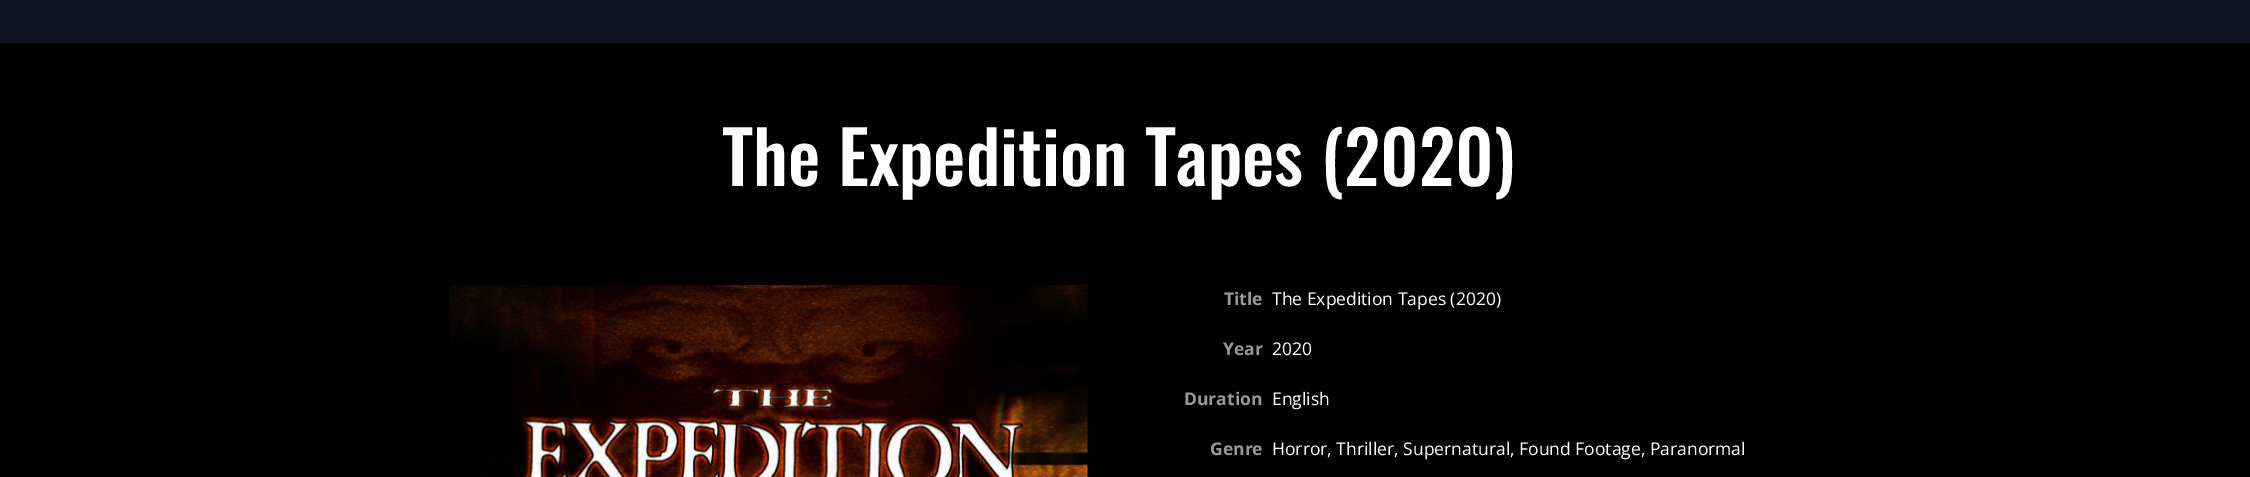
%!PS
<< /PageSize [2250 477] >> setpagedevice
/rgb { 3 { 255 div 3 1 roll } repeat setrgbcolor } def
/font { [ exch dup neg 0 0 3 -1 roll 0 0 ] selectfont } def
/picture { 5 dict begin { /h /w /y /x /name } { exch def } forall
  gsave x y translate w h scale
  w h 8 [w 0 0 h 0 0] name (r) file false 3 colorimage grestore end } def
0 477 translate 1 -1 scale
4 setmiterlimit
17 21 33 rgb
0 0 2250 477 rectfill
0 0 0 rgb
0 43 2250 434 rectfill
(img/1.rgb) 450 285 638 192 picture
/Oswald-Medium 72.5 font
255 255 255 rgb
722 186 moveto (The Expedition Tapes \(2020\)) show
/OpenSans-Bold 17.5 font
153 153 153 rgb
1224 305 moveto (Title) show
/OpenSans-Regular 17.5 font
255 255 255 rgb
1272 305 moveto (The Expedition Tapes \(2020\)) show
/OpenSans-Bold 17.5 font
153 153 153 rgb
1223 355 moveto (Year) show
/OpenSans-Regular 17.5 font
255 255 255 rgb
1272 355 moveto (2020) show
/OpenSans-Bold 17.5 font
153 153 153 rgb
1184 405 moveto (Duration) show
/OpenSans-Regular 17.5 font
255 255 255 rgb
1272 405 moveto (English) show
/OpenSans-Bold 17.5 font
153 153 153 rgb
1210 455 moveto (Genre) show
/OpenSans-Regular 17.5 font
255 255 255 rgb
1272 455 moveto (Horror, Thriller, Supernatural, Found Footage, Paranormal) show
showpage
